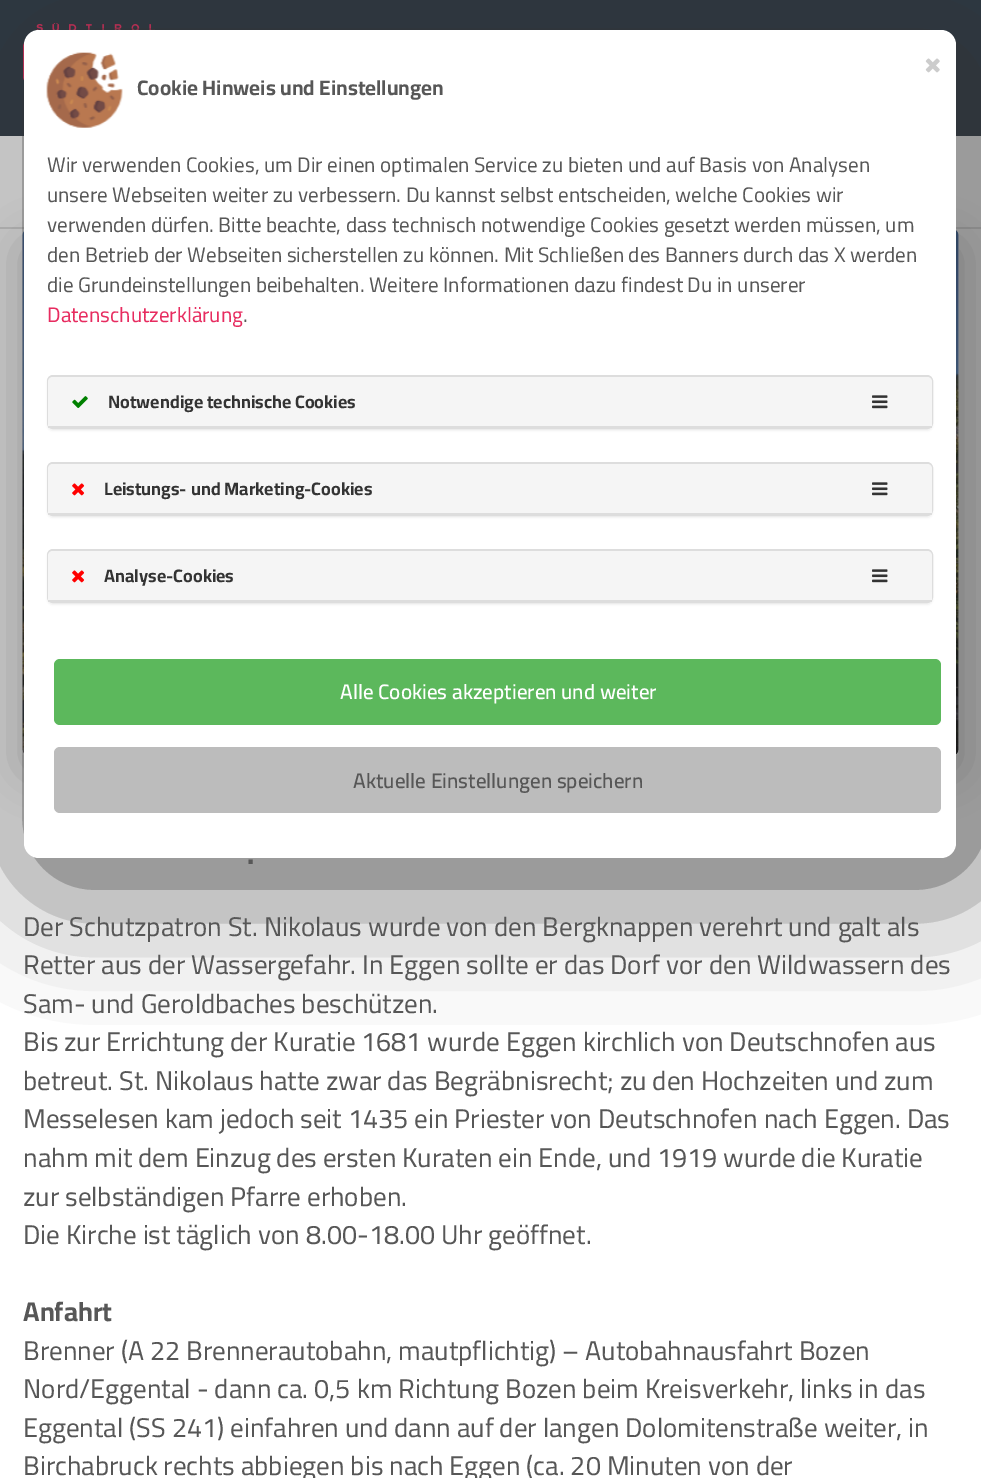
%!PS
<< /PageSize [981 1478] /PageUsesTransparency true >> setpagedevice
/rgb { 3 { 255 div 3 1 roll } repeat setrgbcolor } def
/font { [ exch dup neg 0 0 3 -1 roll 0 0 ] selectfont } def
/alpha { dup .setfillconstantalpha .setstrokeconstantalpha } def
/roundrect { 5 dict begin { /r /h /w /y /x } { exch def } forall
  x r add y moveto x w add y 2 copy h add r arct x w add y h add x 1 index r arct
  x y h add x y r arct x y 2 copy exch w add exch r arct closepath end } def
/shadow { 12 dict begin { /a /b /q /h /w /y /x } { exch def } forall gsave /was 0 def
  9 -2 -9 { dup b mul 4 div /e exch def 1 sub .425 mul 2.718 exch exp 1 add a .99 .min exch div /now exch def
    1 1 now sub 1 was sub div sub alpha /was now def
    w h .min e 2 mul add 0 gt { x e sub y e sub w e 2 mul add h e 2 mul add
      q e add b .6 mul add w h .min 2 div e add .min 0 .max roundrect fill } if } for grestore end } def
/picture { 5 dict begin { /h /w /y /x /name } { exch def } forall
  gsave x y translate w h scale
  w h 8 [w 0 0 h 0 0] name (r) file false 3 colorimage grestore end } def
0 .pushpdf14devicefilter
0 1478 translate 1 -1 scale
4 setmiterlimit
255 255 255 rgb
0 0 981 1478 rectfill
44 55 66 rgb
0 0 981 136 rectfill
(img/1.rgb) 23 23 132 58 picture
221 221 221 rgb
0 227 981 2 rectfill
0 0 0 rgb
23 245 936 526 6 22.5 0.23 shadow
(img/7.rgb) 22 230 937 525 picture
51 51 51 rgb
39 45 932 828 15 67.5 1 shadow
255 255 255 rgb
24 30 932 828 15 roundrect fill
(img/2.rgb) 925 58 15 15 picture
(img/3.rgb) 46 52 77 76 picture
0 0 0 rgb
47 377 886 54 6 1 0.05 shadow
221 221 221 rgb
2 setlinewidth
48 376 884 52 5 roundrect stroke
245 245 245 rgb
53 377 moveto 927 377 lineto 930 377 932 379 932 382 curveto 932 428 lineto 48 428 lineto 48 382 lineto 48 379 50 377 53 377 curveto closepath fill
221 221 221 rgb
48 426 884 2 rectfill
(img/4.rgb) 72 396 16 12 picture
(img/5.rgb) 872 395 16 14 picture
0 0 0 rgb
47 464 886 54 6 1 0.05 shadow
221 221 221 rgb
48 463 884 52 5 roundrect stroke
245 245 245 rgb
53 464 moveto 927 464 lineto 930 464 932 466 932 469 curveto 932 515 lineto 48 515 lineto 48 469 lineto 48 466 50 464 53 464 curveto closepath fill
221 221 221 rgb
48 513 884 2 rectfill
(img/6.rgb) 72 483 13 13 picture
(img/5.rgb) 872 482 16 14 picture
0 0 0 rgb
47 551 886 54 6 1 0.05 shadow
221 221 221 rgb
48 550 884 52 5 roundrect stroke
245 245 245 rgb
53 551 moveto 927 551 lineto 930 551 932 553 932 556 curveto 932 602 lineto 48 602 lineto 48 556 lineto 48 553 50 551 53 551 curveto closepath fill
221 221 221 rgb
48 600 884 2 rectfill
(img/6.rgb) 72 570 13 13 picture
(img/5.rgb) 872 569 16 14 picture
92 184 92 rgb
54 659 887 66 6 roundrect fill
188 188 188 rgb
54 747 887 66 6 roundrect fill
/Cairo-Bold 21 font
87 87 87 rgb
137 95 moveto (Cookie Hinweis und Einstellungen) show
/Cairo-Regular 21 font
[
  [(Wir verwenden Cookies, um Dir einen optimalen Service zu bieten und auf Basis von Analysen) 47 172]
  [(unsere Webseiten weiter zu verbessern. Du kannst selbst entscheiden, welche Cookies wir) 47 202]
  [(verwenden dürfen. Bitte beachte, dass technisch notwendige Cookies gesetzt werden müssen, um) 47 232]
  [(den Betrieb der Webseiten sicherstellen zu können. Mit Schließen des Banners durch das X werden) 47 262]
  [(die Grundeinstellungen beibehalten. Weitere Informationen dazu findest Du in unserer) 47 292]
] { aload pop moveto show } forall
231 44 96 rgb
47 322 moveto (Datenschutzerklärung) show
87 87 87 rgb
243 322 moveto (.) show
/Cairo-Bold 18 font
51 51 51 rgb
[
  [(Notwendige technische Cookies) 108 408]
  [(Leistungs- und Marketing-Cookies) 104 495]
  [(Analyse-Cookies) 104 582]
] { aload pop moveto show } forall
/Cairo-SemiBold 21 font
255 255 255 rgb
340 699 moveto (Alle Cookies akzeptieren und weiter) show
87 87 87 rgb
353 788 moveto (Aktuelle Einstellungen speichern) show
/Cairo-Bold 30 font
247 864 moveto (.) show
/Cairo-Regular 27 font
[
  [(Der Schutzpatron St. Nikolaus wurde von den Bergknappen verehrt und galt als) 23 936]
  [(Retter aus der Wassergefahr. In Eggen sollte er das Dorf vor den Wildwassern des) 23 974]
  [(Sam- und Geroldbaches beschützen.) 23 1013]
  [(Bis zur Errichtung der Kuratie 1681 wurde Eggen kirchlich von Deutschnofen aus) 23 1051]
  [(betreut. St. Nikolaus hatte zwar das Begräbnisrecht; zu den Hochzeiten und zum) 23 1090]
  [(Messelesen kam jedoch seit 1435 ein Priester von Deutschnofen nach Eggen. Das) 23 1128]
  [(nahm mit dem Einzug des ersten Kuraten ein Ende, und 1919 wurde die Kuratie) 23 1167]
  [(zur selbständigen Pfarre erhoben.) 23 1206]
  [(Die Kirche ist täglich von 8.00-18.00 Uhr geöffnet.) 23 1244]
] { aload pop moveto show } forall
/Cairo-Bold 27 font
23 1321 moveto (Anfahrt) show
/Cairo-Regular 27 font
[
  [(Brenner \(A 22 Brennerautobahn, mautpflichtig\) – Autobahnausfahrt Bozen) 23 1360]
  [(Nord/Eggental - dann ca. 0,5 km Richtung Bozen beim Kreisverkehr, links in das) 23 1398]
  [(Eggental \(SS 241\) einfahren und dann auf der langen Dolomitenstraße weiter, in) 23 1437]
  [(Birchabruck rechts abbiegen bis nach Eggen \(ca. 20 Minuten von der) 23 1475]
] { aload pop moveto show } forall
.poppdf14devicefilter showpage
